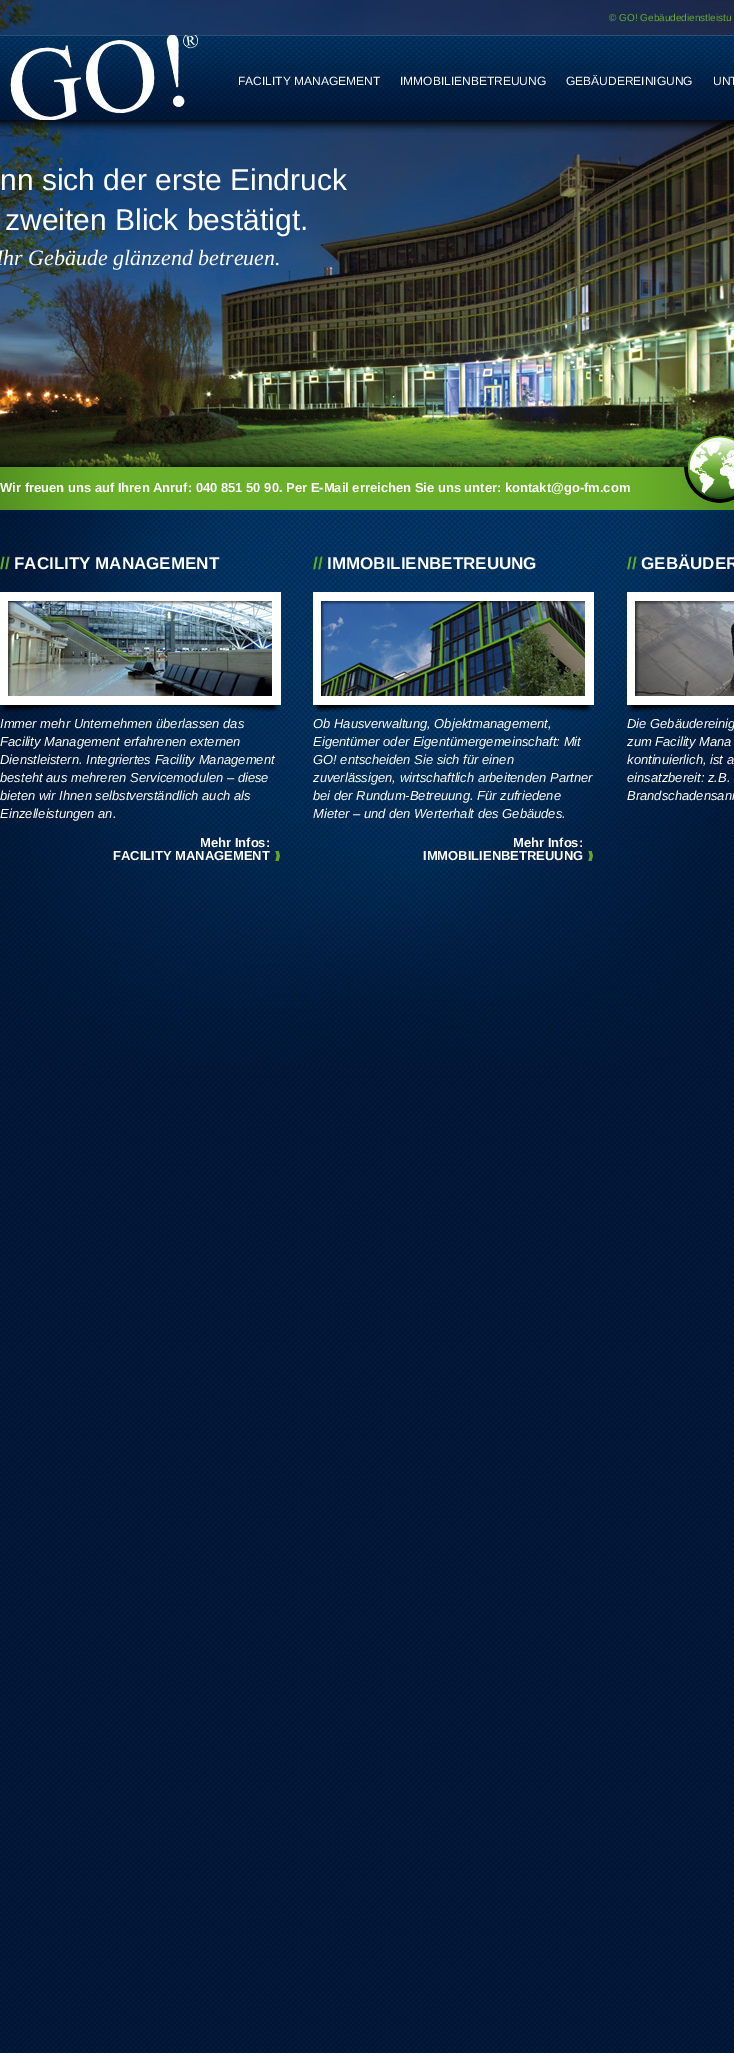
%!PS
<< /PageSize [734 2053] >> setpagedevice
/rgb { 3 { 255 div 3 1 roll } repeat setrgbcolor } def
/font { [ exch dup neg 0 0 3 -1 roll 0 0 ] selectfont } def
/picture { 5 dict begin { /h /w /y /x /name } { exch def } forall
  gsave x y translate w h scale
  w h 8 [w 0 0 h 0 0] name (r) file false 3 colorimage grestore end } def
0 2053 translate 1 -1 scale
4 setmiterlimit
255 255 255 rgb
0 0 734 2053 rectfill
(img/1.rgb) 0 1066 734 987 picture
(img/2.rgb) 0 0 734 467 picture
(img/3.rgb) 0 35 734 98 picture
(img/4.rgb) 10 35 188 85 picture
(img/5.rgb) 0 455 691 12 picture
(img/6.rgb) 0 467 734 43 picture
(img/7.rgb) 684 435 50 68 picture
(img/8.rgb) 0 510 734 556 picture
(img/9.rgb) 0 592 281 113 picture
(img/10.rgb) 1 705 278 7 picture
(img/11.rgb) 313 592 281 113 picture
(img/12.rgb) 313 705 279 7 picture
(img/13.rgb) 627 592 107 113 picture
(img/14.rgb) 627 705 107 7 picture
(img/15.rgb) 275 851 5 10 picture
(img/16.rgb) 588 851 5 10 picture
/LiberationSans-Regular 10 font
103 172 41 rgb
609 21 moveto (© GO! Gebäudedienstleistu) show
/LiberationSans-Regular 12 font
255 255 255 rgb
[
  [(FACILITY MANAGEMENT) 238 85]
  [(IMMOBILIENBETREUUNG) 400 85]
  [(GEBÄUDEREINIGUNG) 566 85]
  [(UNT) 713 85]
] { aload pop moveto show } forall
/LiberationSans-Regular 30 font
0 190 moveto (nn sich der erste Eindruck) show
5 230 moveto (zweiten Blick bestätigt.) show
/LiberationSerif-Italic 22 font
-4 265 moveto (Ihr Gebäude glänzend betreuen.) show
/LiberationSans-Bold 13 font
0 492 moveto (Wir freuen uns auf Ihren Anruf: 040 851 50 90. Per E-Mail erreichen Sie uns unter: kontakt@go-fm.com) show
/LiberationSans-Bold 17 font
103 172 41 rgb
0 569 moveto (//) show
255 255 255 rgb
14 569 moveto (FACILITY MANAGEMENT) show
/LiberationSans-Italic 13 font
[
  [(Immer mehr Unternehmen überlassen das) 0 728]
  [(Facility Management erfahrenen externen) 0 746]
  [(Dienstleistern. Integriertes Facility Management) 0 764]
  [(besteht aus mehreren Servicemodulen – diese) 0 782]
  [(bieten wir Ihnen selbstverständlich auch als) 0 800]
  [(Einzelleistungen an.) 0 818]
] { aload pop moveto show } forall
/LiberationSans-Bold 17 font
103 172 41 rgb
313 569 moveto (//) show
255 255 255 rgb
327 569 moveto (IMMOBILIENBETREUUNG) show
/LiberationSans-Italic 13 font
[
  [(Ob Hausverwaltung, Objektmanagement,) 313 728]
  [(Eigentümer oder Eigentümergemeinschaft: Mit) 313 746]
  [(GO! entscheiden Sie sich für einen) 313 764]
  [(zuverlässigen, wirtschaftlich arbeitenden Partner) 313 782]
  [(bei der Rundum-Betreuung. Für zufriedene) 313 800]
  [(Mieter – und den Werterhalt des Gebäudes.) 313 818]
] { aload pop moveto show } forall
/LiberationSans-Bold 17 font
103 172 41 rgb
627 569 moveto (//) show
255 255 255 rgb
641 569 moveto (GEBÄUDER) show
/LiberationSans-Italic 13 font
[
  [(Die Gebäudereinig) 627 728]
  [(zum Facility Mana) 627 746]
  [(kontinuierlich, ist a) 627 764]
  [(einsatzbereit: z.B.) 627 782]
  [(Brandschadensani) 627 800]
] { aload pop moveto show } forall
/LiberationSans-Bold 13 font
[
  [(Mehr Infos:) 200 847]
  [(FACILITY MANAGEMENT) 113 860]
  [(Mehr Infos:) 513 847]
  [(IMMOBILIENBETREUUNG) 423 860]
] { aload pop moveto show } forall
showpage
